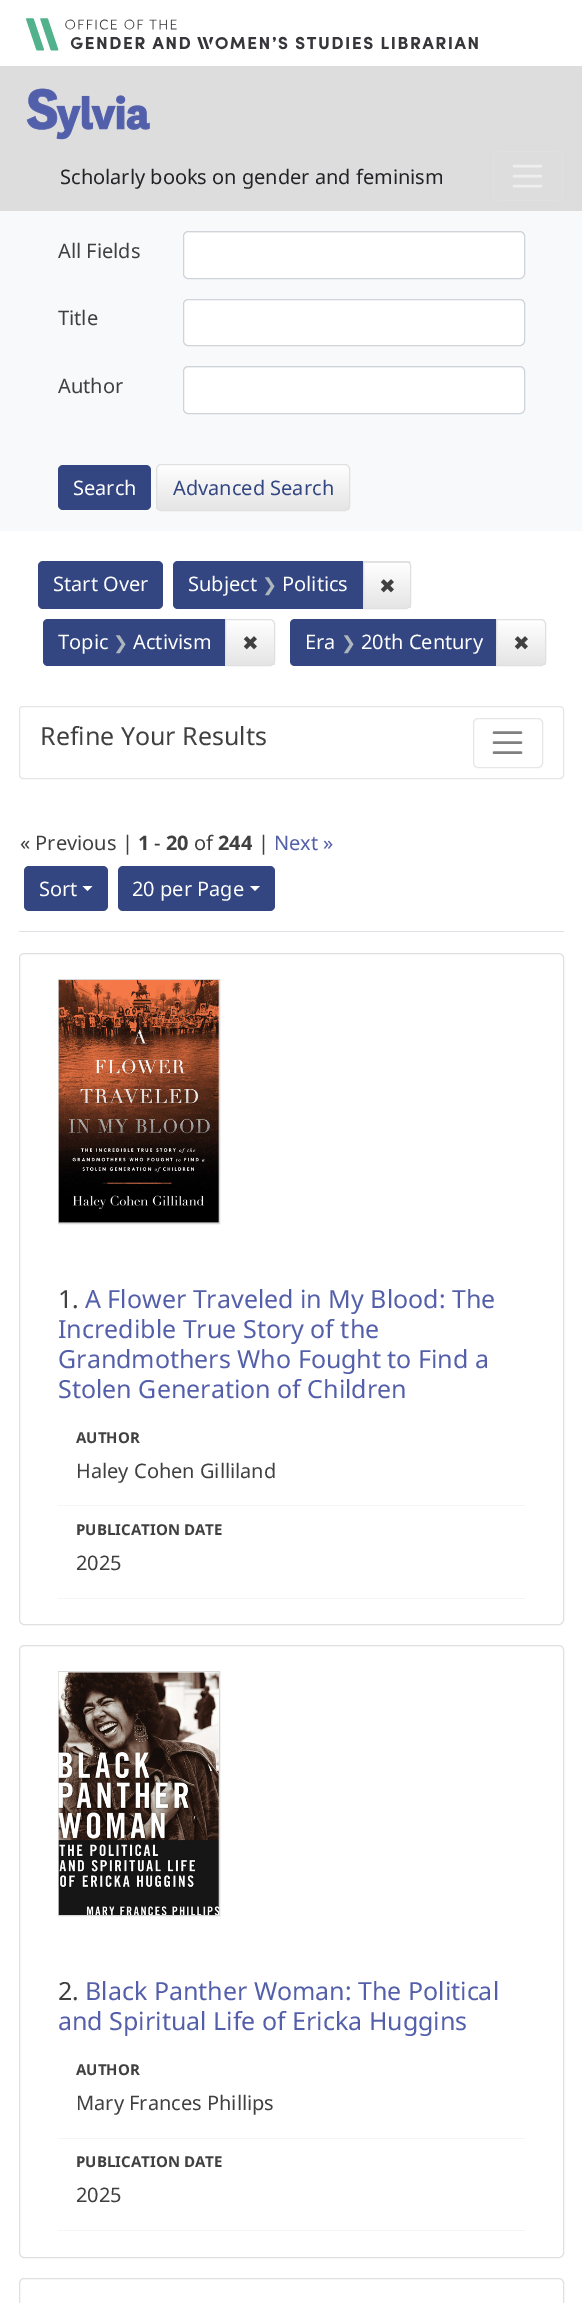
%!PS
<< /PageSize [582 2303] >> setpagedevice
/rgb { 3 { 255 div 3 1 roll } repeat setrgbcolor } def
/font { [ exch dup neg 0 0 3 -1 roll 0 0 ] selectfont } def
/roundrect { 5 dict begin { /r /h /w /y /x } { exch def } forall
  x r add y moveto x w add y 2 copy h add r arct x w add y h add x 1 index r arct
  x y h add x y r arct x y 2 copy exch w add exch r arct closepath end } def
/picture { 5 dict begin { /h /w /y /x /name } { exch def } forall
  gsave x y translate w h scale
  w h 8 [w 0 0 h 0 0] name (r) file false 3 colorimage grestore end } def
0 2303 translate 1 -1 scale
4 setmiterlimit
255 255 255 rgb
0 0 582 2303 rectfill
(img/1.rgb) 26 18 452 33 picture
221 221 221 rgb
0 66 582 145 rectfill
(img/2.rgb) 26 88 124 52 picture
224 224 224 rgb
493.5 151.5 69 49 4.5 roundrect stroke
238 238 238 rgb
2.5 setlinewidth
1 setlinecap
514 166 moveto 541 166 lineto 514 176 moveto 541 176 lineto 514 186 moveto 541 186 lineto stroke
248 249 250 rgb
0 211 582 320 rectfill
255 255 255 rgb
184 233 340 45 4 roundrect fill
206 212 218 rgb
1 setlinewidth
0 setlinecap
183.5 231.5 341 47 4.5 roundrect stroke
255 255 255 rgb
183.5 299.5 341 46 4.5 roundrect gsave fill grestore
206 212 218 rgb
stroke
255 255 255 rgb
184 368 340 45 4 roundrect fill
206 212 218 rgb
183.5 366.5 341 47 4.5 roundrect stroke
51 70 130 rgb
58 465 93 45 5 roundrect fill
gsave
156 464 194 47 5 roundrect clip newpath
gsave 156 465 moveto 350 465 lineto 350 510 lineto 156 510 lineto closepath clip newpath
<< /ShadingType 2 /ColorSpace /DeviceRGB /Coords [253 465 253 510] /Extend [true true] /Function << /FunctionType 2 /Domain [0 1] /C0 [1 1 1] /C1 [0.898 0.898 0.898] /N 1 >> >> shfill grestore
grestore
224 224 224 rgb
156.5 464.5 193 46 4.5 roundrect stroke
51 70 130 rgb
38 561 125 48 5 roundrect fill
178 561 moveto 364 561 lineto 364 609 lineto 178 609 lineto 175 609 173 607 173 604 curveto 173 566 lineto 173 563 175 561 178 561 curveto closepath fill
gsave
363 561 moveto 406 561 lineto 409 561 411 563 411 566 curveto 411 604 lineto 411 607 409 609 406 609 curveto 363 609 lineto closepath clip newpath
gsave 363 561 moveto 411 561 lineto 411 563 lineto 363 563 lineto closepath clip newpath
<< /ShadingType 2 /ColorSpace /DeviceRGB /Coords [387 518 387 563] /Extend [true true] /Function << /FunctionType 2 /Domain [0 1] /C0 [1 1 1] /C1 [0.898 0.898 0.898] /N 1 >> >> shfill grestore
gsave 364 563 moveto 411 563 lineto 411 608 lineto 364 608 lineto closepath clip newpath
<< /ShadingType 2 /ColorSpace /DeviceRGB /Coords [387 563 387 608] /Extend [true true] /Function << /FunctionType 2 /Domain [0 1] /C0 [1 1 1] /C1 [0.898 0.898 0.898] /N 1 >> >> shfill grestore
grestore
224 224 224 rgb
363.5 561.5 moveto 406 561.5 lineto 408.5 561.5 410.5 563.5 410.5 566 curveto 410.5 604 lineto 410.5 606.5 408.5 608.5 406 608.5 curveto 363.5 608.5 lineto closepath stroke
51 70 130 rgb
48 619 moveto 226 619 lineto 226 666 lineto 48 666 lineto 45 666 43 664 43 661 curveto 43 624 lineto 43 621 45 619 48 619 curveto closepath fill
gsave
225 619 moveto 270 619 lineto 273 619 275 621 275 624 curveto 275 661 lineto 275 664 273 666 270 666 curveto 225 666 lineto closepath clip newpath
gsave 226 620 moveto 275 620 lineto 275 665 lineto 226 665 lineto closepath clip newpath
<< /ShadingType 2 /ColorSpace /DeviceRGB /Coords [250 620 250 665] /Extend [true true] /Function << /FunctionType 2 /Domain [0 1] /C0 [1 1 1] /C1 [0.898 0.898 0.898] /N 1 >> >> shfill grestore
grestore
224 224 224 rgb
225.5 619.5 moveto 270 619.5 lineto 272.5 619.5 274.5 621.5 274.5 624 curveto 274.5 661 lineto 274.5 663.5 272.5 665.5 270 665.5 curveto 225.5 665.5 lineto closepath stroke
51 70 130 rgb
295 619 moveto 498 619 lineto 498 666 lineto 295 666 lineto 292 666 290 664 290 661 curveto 290 624 lineto 290 621 292 619 295 619 curveto closepath fill
gsave
496 619 moveto 541 619 lineto 544 619 546 621 546 624 curveto 546 661 lineto 546 664 544 666 541 666 curveto 496 666 lineto closepath clip newpath
gsave 497 620 moveto 546 620 lineto 546 665 lineto 497 665 lineto closepath clip newpath
<< /ShadingType 2 /ColorSpace /DeviceRGB /Coords [521 620 521 665] /Extend [true true] /Function << /FunctionType 2 /Domain [0 1] /C0 [1 1 1] /C1 [0.898 0.898 0.898] /N 1 >> >> shfill grestore
grestore
224 224 224 rgb
496.5 619.5 moveto 541 619.5 lineto 543.5 619.5 545.5 621.5 545.5 624 curveto 545.5 661 lineto 545.5 663.5 543.5 665.5 541 665.5 curveto 496.5 665.5 lineto closepath stroke
229 229 229 rgb
19.5 706.5 544 72 3.5 roundrect stroke
230 230 230 rgb
473.5 718.5 69 49 4.5 roundrect stroke
128 128 128 rgb
2.5 setlinewidth
1 setlinecap
494 732.5 moveto 521 732.5 lineto 494 742.5 moveto 521 742.5 lineto 494 752.5 moveto 521 752.5 lineto stroke
222 226 230 rgb
19 931 545 1 rectfill
51 70 130 rgb
24 866 84 45 5 roundrect fill
255 255 255 rgb
82.5 886 moveto 92.5 886 lineto 87.5 891 lineto closepath fill
51 70 130 rgb
118 866 157 45 5 roundrect fill
255 255 255 rgb
250 886 moveto 260 886 lineto 255 891 lineto closepath fill
224 224 224 rgb
1 setlinewidth
0 setlinecap
19.5 953.5 544 671 4.5 roundrect stroke
217 217 217 rgb
58.5 979.5 161 244 rectstroke
(img/3.rgb) 58 980 161 243 picture
245 245 245 rgb
58 1505 467 1 rectfill
58 1598 467 1 rectfill
224 224 224 rgb
19.5 1645.5 544 612 4.5 roundrect stroke
217 217 217 rgb
58.5 1671.5 161 244 rectstroke
(img/4.rgb) 58 1672 161 243 picture
245 245 245 rgb
58 2138 467 1 rectfill
58 2230 467 1 rectfill
224 224 224 rgb
19.5 2278.5 544 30 4.5 roundrect stroke
/NotoSans-Regular 20 font
35 34 38 rgb
60 184 moveto (Scholarly books on gender and feminism) show
64 64 64 rgb
[
  [(All Fields) 58 258]
  [(Title) 58 325]
  [(Author) 58 393]
] { aload pop moveto show } forall
255 255 255 rgb
73 495 moveto (Search) show
51 70 130 rgb
173 495 moveto (Advanced Search) show
255 255 255 rgb
53 591 moveto (Start Over) show
188 591 moveto (Subject) show
/DejaVuSans-Regular 18 font
173 181 189 rgb
262 591 moveto (❯) show
/NotoSans-Regular 20 font
255 255 255 rgb
282 591 moveto (Politics) show
/DejaVuSans-Regular 20 font
64 64 64 rgb
379 593 moveto (✖) show
/NotoSans-Regular 20 font
255 255 255 rgb
58 649 moveto (Topic) show
/DejaVuSans-Regular 18 font
173 181 189 rgb
113 649 moveto (❯) show
/NotoSans-Regular 20 font
255 255 255 rgb
133 649 moveto (Activism) show
/DejaVuSans-Regular 20 font
64 64 64 rgb
242 650 moveto (✖) show
/NotoSans-Regular 20 font
255 255 255 rgb
305 649 moveto (Era) show
/DejaVuSans-Regular 18 font
173 181 189 rgb
341 649 moveto (❯) show
/NotoSans-Regular 20 font
255 255 255 rgb
361 649 moveto (20th Century) show
/DejaVuSans-Regular 20 font
64 64 64 rgb
513 650 moveto (✖) show
/NotoSans-Regular 25 font
40 745 moveto (Refine Your Results) show
/NotoSans-Regular 20 font
20 850 moveto (« Previous |) show
/NotoSans-Bold 20 font
138 850 moveto (1) show
/NotoSans-Regular 20 font
154 850 moveto (-) show
/NotoSans-Bold 20 font
166 850 moveto (20) show
/NotoSans-Regular 20 font
194 850 moveto (of) show
/NotoSans-Bold 20 font
218 850 moveto (244) show
/NotoSans-Regular 20 font
258 850 moveto (|) show
84 95 170 rgb
274 850 moveto (Next ») show
255 255 255 rgb
39 896 moveto (Sort) show
132 896 moveto (20 per Page) show
/NotoSans-Regular 25 font
64 64 64 rgb
58 1308 moveto (1.) show
84 95 170 rgb
[
  [(A Flower Traveled in My Blood: The) 85 1308]
  [(Incredible True Story of the) 58 1338]
  [(Grandmothers Who Fought to Find a) 58 1368]
  [(Stolen Generation of Children) 58 1398]
] { aload pop moveto show } forall
/NotoSans-Bold 15 font
64 64 64 rgb
76 1443 moveto (AUTHOR) show
/NotoSans-Regular 20 font
76 1478 moveto (Haley Cohen Gilliland) show
/NotoSans-Bold 15 font
76 1535 moveto (PUBLICATION DATE) show
/NotoSans-Regular 20 font
76 1570 moveto (2025) show
/NotoSans-Regular 25 font
58 2000 moveto (2.) show
84 95 170 rgb
85 2000 moveto (Black Panther Woman: The Political) show
58 2030 moveto (and Spiritual Life of Ericka Huggins) show
/NotoSans-Bold 15 font
64 64 64 rgb
76 2075 moveto (AUTHOR) show
/NotoSans-Regular 20 font
76 2110 moveto (Mary Frances Phillips) show
/NotoSans-Bold 15 font
76 2167 moveto (PUBLICATION DATE) show
/NotoSans-Regular 20 font
76 2202 moveto (2025) show
showpage
